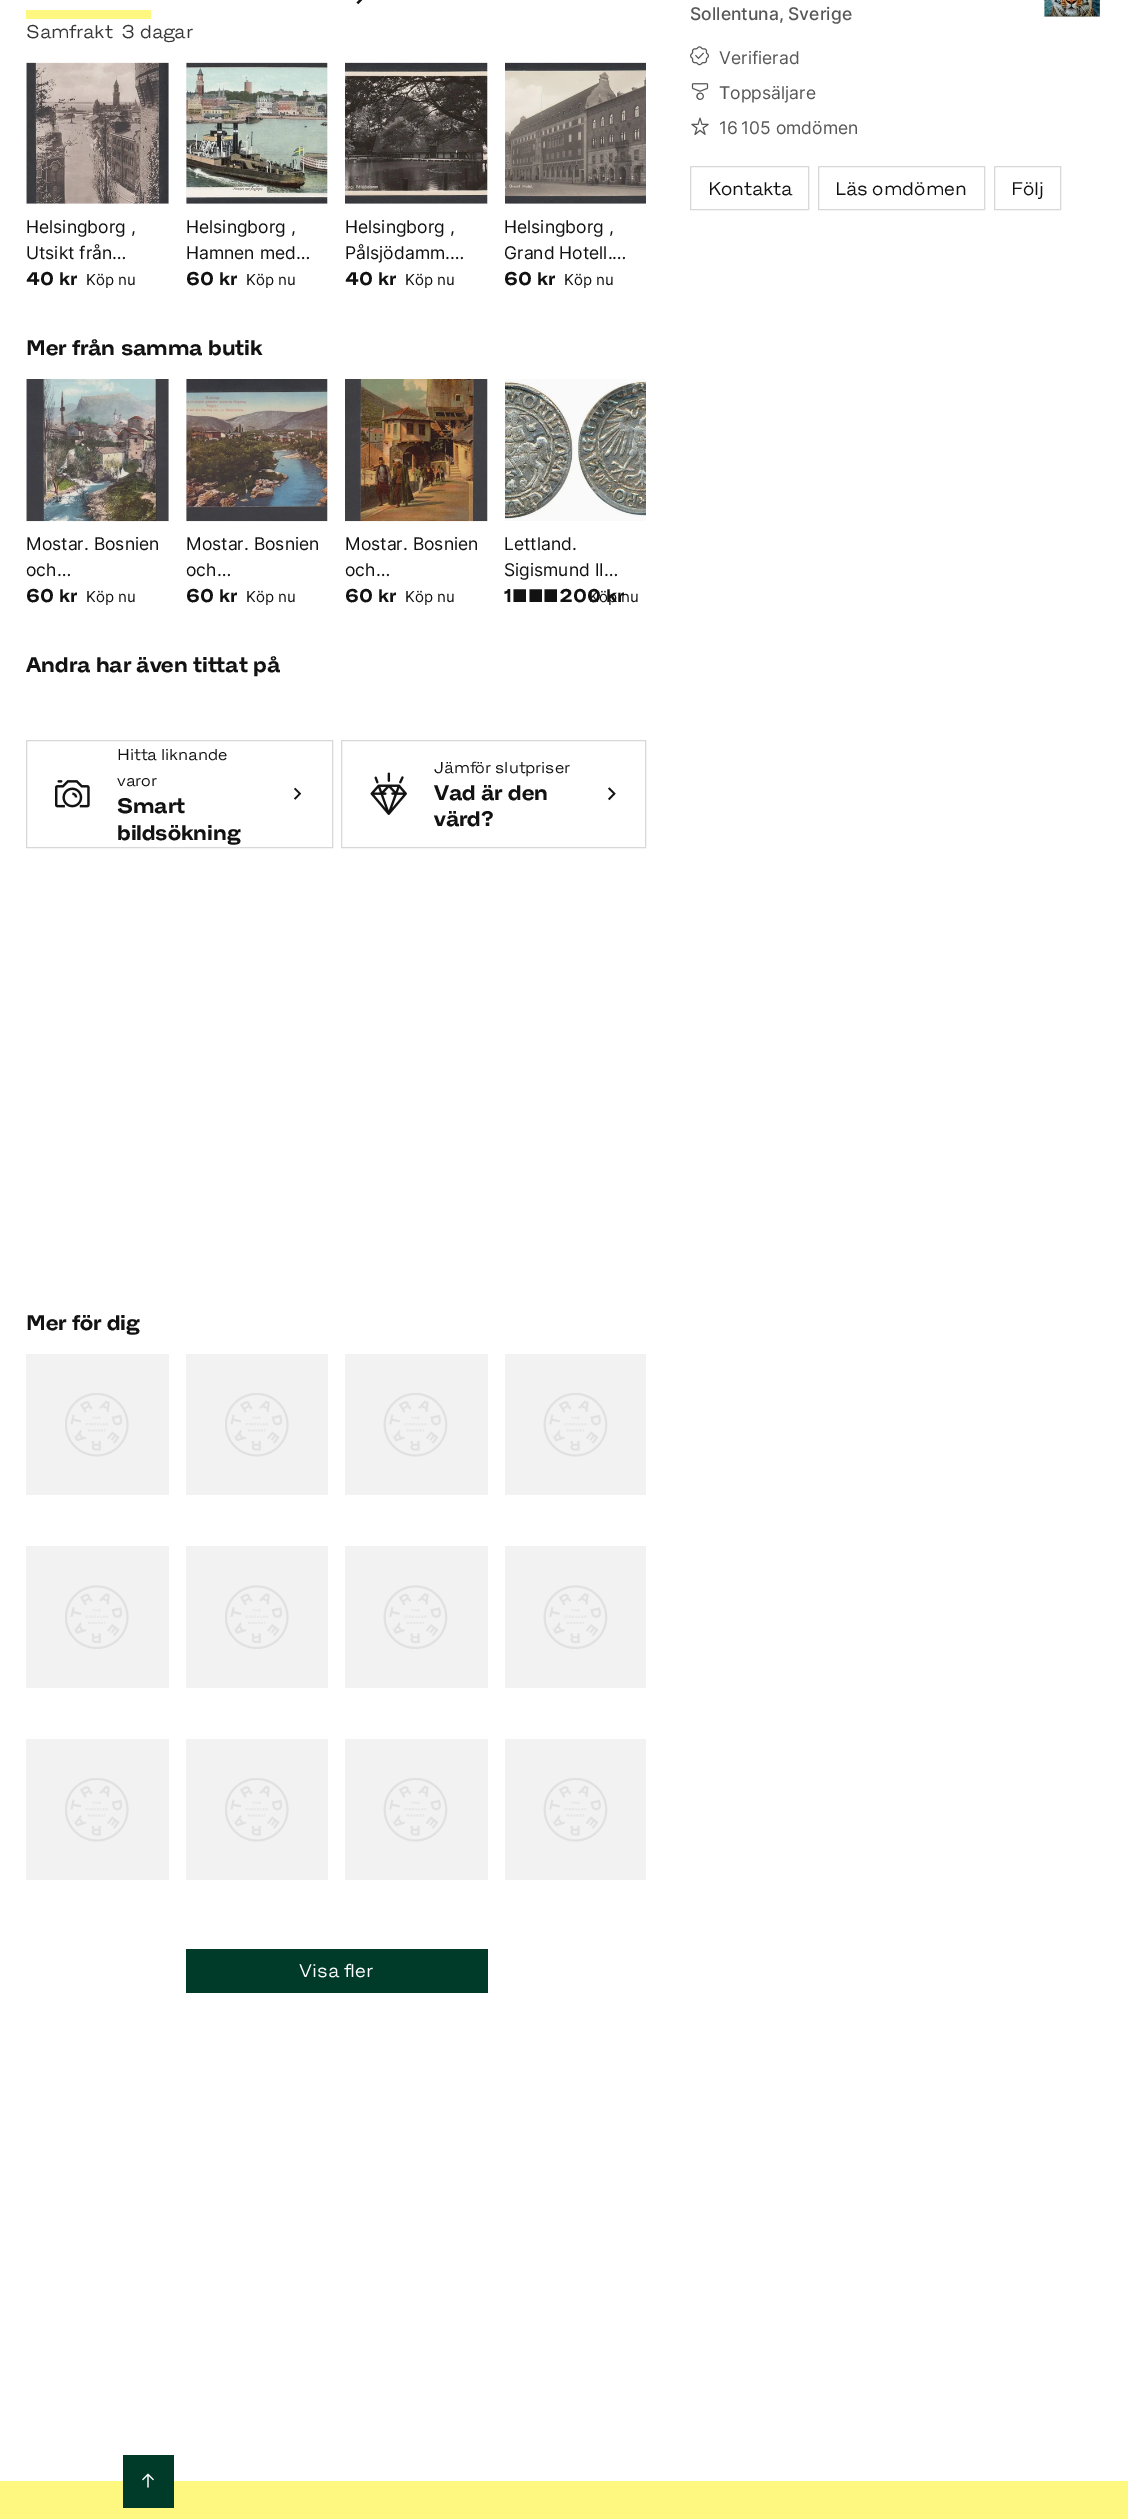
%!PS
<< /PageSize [1128 2519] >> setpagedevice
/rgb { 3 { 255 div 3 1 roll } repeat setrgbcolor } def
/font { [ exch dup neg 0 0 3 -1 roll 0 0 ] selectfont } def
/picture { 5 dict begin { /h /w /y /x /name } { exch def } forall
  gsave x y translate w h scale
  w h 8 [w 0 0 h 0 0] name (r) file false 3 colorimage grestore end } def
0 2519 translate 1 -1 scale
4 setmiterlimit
255 255 255 rgb
0 0 1128 2519 rectfill
(img/1.rgb) 356 0 7 5 picture
254 248 128 rgb
26 10 125 9 rectfill
gsave 26 63 moveto 169 63 lineto 169 204 lineto 26 204 lineto closepath clip newpath
<< /ShadingType 2 /ColorSpace /DeviceRGB /Coords [-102 133 468 133] /Extend [true true] /Function << /FunctionType 3 /Domain [0 1] /Functions [<< /FunctionType 2 /Domain [0 1] /C0 [0.98 0.98 0.98] /C1 [0.98 0.98 0.98] /N 1 >> << /FunctionType 2 /Domain [0 1] /C0 [0.98 0.98 0.98] /C1 [0.922 0.925 0.941] /N 1 >> << /FunctionType 2 /Domain [0 1] /C0 [0.922 0.925 0.941] /C1 [0.98 0.98 0.98] /N 1 >> << /FunctionType 2 /Domain [0 1] /C0 [0.98 0.98 0.98] /C1 [0.98 0.98 0.98] /N 1 >>] /Bounds [0.08 0.18 0.33] /Encode [0 1 0 1 0 1 0 1] >> >> shfill grestore
(img/2.rgb) 26 62 143 142 picture
gsave 186 63 moveto 328 63 lineto 328 204 lineto 186 204 lineto closepath clip newpath
<< /ShadingType 2 /ColorSpace /DeviceRGB /Coords [59 133 624 133] /Extend [true true] /Function << /FunctionType 3 /Domain [0 1] /Functions [<< /FunctionType 2 /Domain [0 1] /C0 [0.98 0.98 0.98] /C1 [0.98 0.98 0.98] /N 1 >> << /FunctionType 2 /Domain [0 1] /C0 [0.98 0.98 0.98] /C1 [0.922 0.925 0.941] /N 1 >> << /FunctionType 2 /Domain [0 1] /C0 [0.922 0.925 0.941] /C1 [0.98 0.98 0.98] /N 1 >> << /FunctionType 2 /Domain [0 1] /C0 [0.98 0.98 0.98] /C1 [0.98 0.98 0.98] /N 1 >>] /Bounds [0.08 0.18 0.33] /Encode [0 1 0 1 0 1 0 1] >> >> shfill grestore
(img/3.rgb) 186 62 142 142 picture
gsave 345 63 moveto 488 63 lineto 488 204 lineto 345 204 lineto closepath clip newpath
<< /ShadingType 2 /ColorSpace /DeviceRGB /Coords [217 133 787 133] /Extend [true true] /Function << /FunctionType 3 /Domain [0 1] /Functions [<< /FunctionType 2 /Domain [0 1] /C0 [0.98 0.98 0.98] /C1 [0.98 0.98 0.98] /N 1 >> << /FunctionType 2 /Domain [0 1] /C0 [0.98 0.98 0.98] /C1 [0.922 0.925 0.941] /N 1 >> << /FunctionType 2 /Domain [0 1] /C0 [0.922 0.925 0.941] /C1 [0.98 0.98 0.98] /N 1 >> << /FunctionType 2 /Domain [0 1] /C0 [0.98 0.98 0.98] /C1 [0.98 0.98 0.98] /N 1 >>] /Bounds [0.08 0.18 0.33] /Encode [0 1 0 1 0 1 0 1] >> >> shfill grestore
(img/4.rgb) 345 62 143 142 picture
gsave 505 203 moveto 646 203 lineto 646 204 lineto 505 204 lineto closepath clip newpath
<< /ShadingType 2 /ColorSpace /DeviceRGB /Coords [378 133 943 133] /Extend [true true] /Function << /FunctionType 3 /Domain [0 1] /Functions [<< /FunctionType 2 /Domain [0 1] /C0 [0.98 0.98 0.98] /C1 [0.98 0.98 0.98] /N 1 >> << /FunctionType 2 /Domain [0 1] /C0 [0.98 0.98 0.98] /C1 [0.922 0.925 0.941] /N 1 >> << /FunctionType 2 /Domain [0 1] /C0 [0.922 0.925 0.941] /C1 [0.98 0.98 0.98] /N 1 >> << /FunctionType 2 /Domain [0 1] /C0 [0.98 0.98 0.98] /C1 [0.98 0.98 0.98] /N 1 >>] /Bounds [0.08 0.18 0.33] /Encode [0 1 0 1 0 1 0 1] >> >> shfill grestore
(img/5.rgb) 505 62 141 142 picture
gsave 26 379 moveto 169 379 lineto 169 521 lineto 26 521 lineto closepath clip newpath
<< /ShadingType 2 /ColorSpace /DeviceRGB /Coords [-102 450 468 450] /Extend [true true] /Function << /FunctionType 3 /Domain [0 1] /Functions [<< /FunctionType 2 /Domain [0 1] /C0 [0.98 0.98 0.98] /C1 [0.98 0.98 0.98] /N 1 >> << /FunctionType 2 /Domain [0 1] /C0 [0.98 0.98 0.98] /C1 [0.922 0.925 0.941] /N 1 >> << /FunctionType 2 /Domain [0 1] /C0 [0.922 0.925 0.941] /C1 [0.98 0.98 0.98] /N 1 >> << /FunctionType 2 /Domain [0 1] /C0 [0.98 0.98 0.98] /C1 [0.98 0.98 0.98] /N 1 >>] /Bounds [0.08 0.18 0.33] /Encode [0 1 0 1 0 1 0 1] >> >> shfill grestore
(img/6.rgb) 26 379 143 143 picture
gsave 186 379 moveto 328 379 lineto 328 521 lineto 186 521 lineto closepath clip newpath
<< /ShadingType 2 /ColorSpace /DeviceRGB /Coords [59 450 624 450] /Extend [true true] /Function << /FunctionType 3 /Domain [0 1] /Functions [<< /FunctionType 2 /Domain [0 1] /C0 [0.98 0.98 0.98] /C1 [0.98 0.98 0.98] /N 1 >> << /FunctionType 2 /Domain [0 1] /C0 [0.98 0.98 0.98] /C1 [0.922 0.925 0.941] /N 1 >> << /FunctionType 2 /Domain [0 1] /C0 [0.922 0.925 0.941] /C1 [0.98 0.98 0.98] /N 1 >> << /FunctionType 2 /Domain [0 1] /C0 [0.98 0.98 0.98] /C1 [0.98 0.98 0.98] /N 1 >>] /Bounds [0.08 0.18 0.33] /Encode [0 1 0 1 0 1 0 1] >> >> shfill grestore
(img/7.rgb) 186 379 142 143 picture
gsave 487 379 moveto 488 379 lineto 488 521 lineto 487 521 lineto closepath clip newpath
<< /ShadingType 2 /ColorSpace /DeviceRGB /Coords [217 450 787 450] /Extend [true true] /Function << /FunctionType 3 /Domain [0 1] /Functions [<< /FunctionType 2 /Domain [0 1] /C0 [0.98 0.98 0.98] /C1 [0.98 0.98 0.98] /N 1 >> << /FunctionType 2 /Domain [0 1] /C0 [0.98 0.98 0.98] /C1 [0.922 0.925 0.941] /N 1 >> << /FunctionType 2 /Domain [0 1] /C0 [0.922 0.925 0.941] /C1 [0.98 0.98 0.98] /N 1 >> << /FunctionType 2 /Domain [0 1] /C0 [0.98 0.98 0.98] /C1 [0.98 0.98 0.98] /N 1 >>] /Bounds [0.08 0.18 0.33] /Encode [0 1 0 1 0 1 0 1] >> >> shfill grestore
(img/8.rgb) 345 379 143 143 picture
(img/9.rgb) 505 379 141 142 picture
216 216 216 rgb
26.5 740.5 306 107 rectstroke
(img/10.rgb) 55 780 35 28 picture
(img/11.rgb) 294 787 8 13 picture
341.5 740.5 304 107 rectstroke
(img/12.rgb) 370 772 37 43 picture
(img/13.rgb) 608 787 8 14 picture
242 242 242 rgb
26 1354 143 141 rectfill
(img/14.rgb) 65 1393 64 64 picture
186 1354 142 141 rectfill
(img/14.rgb) 225 1393 64 64 picture
345 1354 143 141 rectfill
(img/15.rgb) 383 1393 65 64 picture
505 1354 141 141 rectfill
(img/15.rgb) 543 1393 65 64 picture
26 1546 143 142 rectfill
(img/16.rgb) 65 1585 64 64 picture
186 1546 142 142 rectfill
(img/16.rgb) 225 1585 64 64 picture
345 1546 143 142 rectfill
(img/17.rgb) 383 1585 65 64 picture
505 1546 141 142 rectfill
(img/17.rgb) 543 1585 65 64 picture
26 1739 143 141 rectfill
(img/14.rgb) 65 1778 64 64 picture
186 1739 142 141 rectfill
(img/14.rgb) 225 1778 64 64 picture
345 1739 143 141 rectfill
(img/15.rgb) 383 1778 65 64 picture
505 1739 141 141 rectfill
(img/15.rgb) 543 1778 65 64 picture
0 59 41 rgb
186 1949 302 44 rectfill
(img/18.rgb) 1043 0 58 17 picture
(img/19.rgb) 690 46 19 20 picture
(img/20.rgb) 691 83 18 17 picture
(img/21.rgb) 691 117 18 18 picture
216 216 216 rgb
690.5 166.5 118 43 rectstroke
818.5 166.5 166 43 rectstroke
994.5 166.5 66 43 rectstroke
254 248 128 rgb
0 2481 1128 38 rectfill
0 59 41 rgb
123 2455 51 53 rectfill
/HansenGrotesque-Regular 17.5 font
56 56 56 rgb
26 38 moveto (Samfrakt) show
121 38 moveto (3 dagar) show
/Inter-Regular 17.5 font
18 18 18 rgb
26 233 moveto (Helsingborg ,) show
26 259 moveto (Utsikt från…) show
/HansenGrotesque-Bold 17.5 font
26 285 moveto (40 kr) show
/Inter-Regular 15 font
86 285 moveto (Köp nu) show
/Inter-Regular 17.5 font
186 233 moveto (Helsingborg ,) show
186 259 moveto (Hamnen med…) show
/HansenGrotesque-Bold 17.5 font
186 285 moveto (60 kr) show
/Inter-Regular 15 font
246 285 moveto (Köp nu) show
/Inter-Regular 17.5 font
345 233 moveto (Helsingborg ,) show
345 259 moveto (Pålsjödamm.…) show
/HansenGrotesque-Bold 17.5 font
345 285 moveto (40 kr) show
/Inter-Regular 15 font
405 285 moveto (Köp nu) show
/Inter-Regular 17.5 font
504 233 moveto (Helsingborg ,) show
504 259 moveto (Grand Hotell.…) show
/HansenGrotesque-Bold 17.5 font
504 285 moveto (60 kr) show
/Inter-Regular 15 font
564 285 moveto (Köp nu) show
/HansenGrotesque-Bold 20 font
26 355 moveto (Mer från samma butik) show
/Inter-Regular 17.5 font
26 550 moveto (Mostar. Bosnien) show
26 576 moveto (och…) show
/HansenGrotesque-Bold 17.5 font
26 602 moveto (60 kr) show
/Inter-Regular 15 font
86 602 moveto (Köp nu) show
/Inter-Regular 17.5 font
186 550 moveto (Mostar. Bosnien) show
186 576 moveto (och…) show
/HansenGrotesque-Bold 17.5 font
186 602 moveto (60 kr) show
/Inter-Regular 15 font
246 602 moveto (Köp nu) show
/Inter-Regular 17.5 font
345 550 moveto (Mostar. Bosnien) show
345 576 moveto (och…) show
/HansenGrotesque-Bold 17.5 font
345 602 moveto (60 kr) show
/Inter-Regular 15 font
405 602 moveto (Köp nu) show
/Inter-Regular 17.5 font
504 550 moveto (Lettland.) show
504 576 moveto (Sigismund II…) show
/HansenGrotesque-Bold 17.5 font
504 602 moveto (1 200 kr) show
/Inter-Regular 15 font
589 602 moveto (Köp nu) show
/HansenGrotesque-Bold 20 font
26 672 moveto (Andra har även tittat på) show
/HansenGrotesque-Regular 15 font
117 760 moveto (Hitta liknande) show
117 786 moveto (varor) show
/HansenGrotesque-Bold 20 font
117 813 moveto (Smart) show
117 840 moveto (bildsökning) show
/HansenGrotesque-Regular 15 font
434 773 moveto (Jämför slutpriser) show
/HansenGrotesque-Bold 20 font
[
  [(Vad är den) 434 800]
  [(värd?) 434 826]
  [(Mer för dig) 26 1330]
] { aload pop moveto show } forall
/HansenGrotesque-Regular 17.5 font
255 255 255 rgb
299 1977 moveto (Visa fler) show
/Inter-Medium 17.5 font
87 87 87 rgb
690 20 moveto (Sollentuna, Sverige) show
/Inter-Regular 17.5 font
[
  [(Verifierad) 719 64]
  [(Toppsäljare) 719 99]
  [(16 105 omdömen) 719 134]
] { aload pop moveto show } forall
/HansenGrotesque-Regular 17.5 font
18 18 18 rgb
[
  [(Kontakta) 708 195]
  [(Läs omdömen) 835 195]
  [(Följ) 1011 195]
] { aload pop moveto show } forall
/HansenGrotesque-Regular 20 font
255 255 255 rgb
141 2488 moveto (↑) show
showpage
